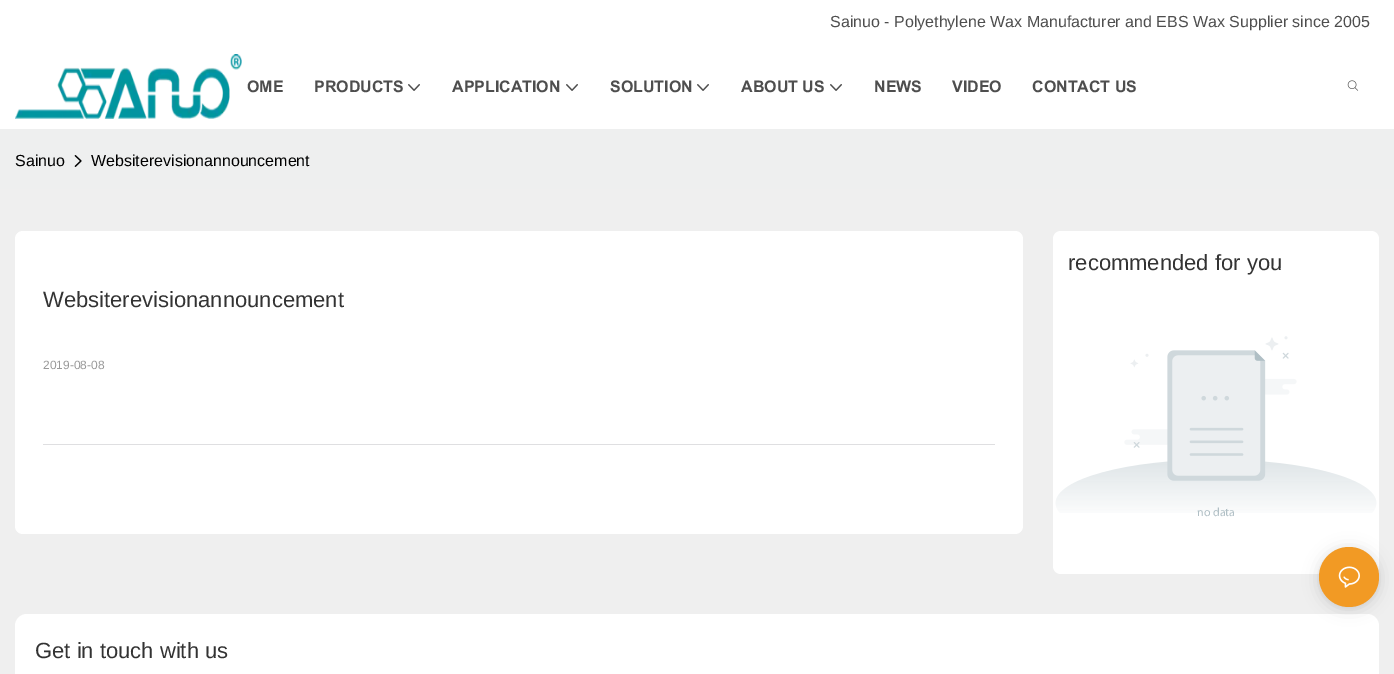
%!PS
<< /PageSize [1394 674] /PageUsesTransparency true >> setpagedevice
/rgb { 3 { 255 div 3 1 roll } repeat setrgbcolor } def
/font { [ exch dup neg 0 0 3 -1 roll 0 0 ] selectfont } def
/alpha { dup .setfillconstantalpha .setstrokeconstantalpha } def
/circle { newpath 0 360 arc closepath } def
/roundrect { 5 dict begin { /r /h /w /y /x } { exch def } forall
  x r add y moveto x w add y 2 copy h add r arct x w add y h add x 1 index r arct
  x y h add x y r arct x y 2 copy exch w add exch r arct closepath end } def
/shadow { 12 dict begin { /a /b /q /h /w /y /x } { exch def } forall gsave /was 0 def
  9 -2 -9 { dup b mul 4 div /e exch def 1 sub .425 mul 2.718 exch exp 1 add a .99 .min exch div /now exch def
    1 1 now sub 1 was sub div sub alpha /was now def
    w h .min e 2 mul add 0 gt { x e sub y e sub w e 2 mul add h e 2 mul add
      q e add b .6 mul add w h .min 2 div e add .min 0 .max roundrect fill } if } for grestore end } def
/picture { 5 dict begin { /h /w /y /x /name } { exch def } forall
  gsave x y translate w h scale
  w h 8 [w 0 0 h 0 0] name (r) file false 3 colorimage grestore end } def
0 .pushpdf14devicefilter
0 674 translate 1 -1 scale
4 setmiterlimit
255 255 255 rgb
0 0 1394 674 rectfill
(img/1.rgb) 15 54 227 65 picture
(img/2.rgb) 408 84 12 7 picture
(img/2.rgb) 566 84 12 7 picture
(img/2.rgb) 697 84 12 7 picture
(img/2.rgb) 830 84 12 7 picture
(img/3.rgb) 1347 80 12 11 picture
238 239 239 rgb
0 129 1394 60 rectfill
(img/4.rgb) 74 155 8 12 picture
239 239 239 rgb
0 189 1394 485 rectfill
255 255 255 rgb
15 231 1008 303 8 roundrect fill
223 223 225 rgb
43 444 952 1 rectfill
255 255 255 rgb
1061 231 moveto 1371 231 lineto 1375.5 231 1379 234.5 1379 239 curveto 1379 294 lineto 1053 294 lineto 1053 239 lineto 1053 234.5 1056.5 231 1061 231 curveto closepath fill
1053 294 moveto 1379 294 lineto 1379 566 lineto 1379 570.5 1375.5 574 1371 574 curveto 1061 574 lineto 1056.5 574 1053 570.5 1053 566 curveto closepath fill
(img/5.rgb) 1055 336 322 177 picture
15 614 1364 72 12 roundrect fill
0 0 0 rgb
1319 549 60 60 30 8 0.12 shadow
1319 548 60 60 30 2 0.06 shadow
242 154 36 rgb
1349 577 30 circle fill
(img/6.rgb) 1338 566 22 22 picture
/LiberationSans-Regular 16 font
78 78 78 rgb
830 27 moveto (Sainuo - Polyethylene Wax Manufacturer and EBS Wax Supplier since 2005) show
/Arial-Bold 16 font
[
  [(OME) 247 92]
  [(PRODUCTS) 314 92]
  [(APPLICATION) 452 92]
  [(SOLUTION) 610 92]
  [(ABOUT US) 741 92]
  [(NEWS) 874 92]
  [(VIDEO) 952 92]
  [(CONTACT US) 1032 92]
] { aload pop moveto show } forall
/LiberationSans-Regular 16 font
0 0 0 rgb
15 166 moveto (Sainuo) show
91 166 moveto (Websiterevisionannouncement) show
/LiberationSans-Regular 22 font
51 51 51 rgb
43 307 moveto (Websiterevisionannouncement) show
/LiberationSans-Regular 12 font
153 153 153 rgb
43 369 moveto (2019-08-08) show
/LiberationSans-Regular 22 font
51 51 51 rgb
1068 270 moveto (recommended for you) show
/Myriad-Regular 12 font
176 191 197 rgb
1197 516 moveto (no data) show
/LiberationSans-Regular 22 font
51 51 51 rgb
35 658 moveto (Get in touch with us) show
.poppdf14devicefilter showpage
